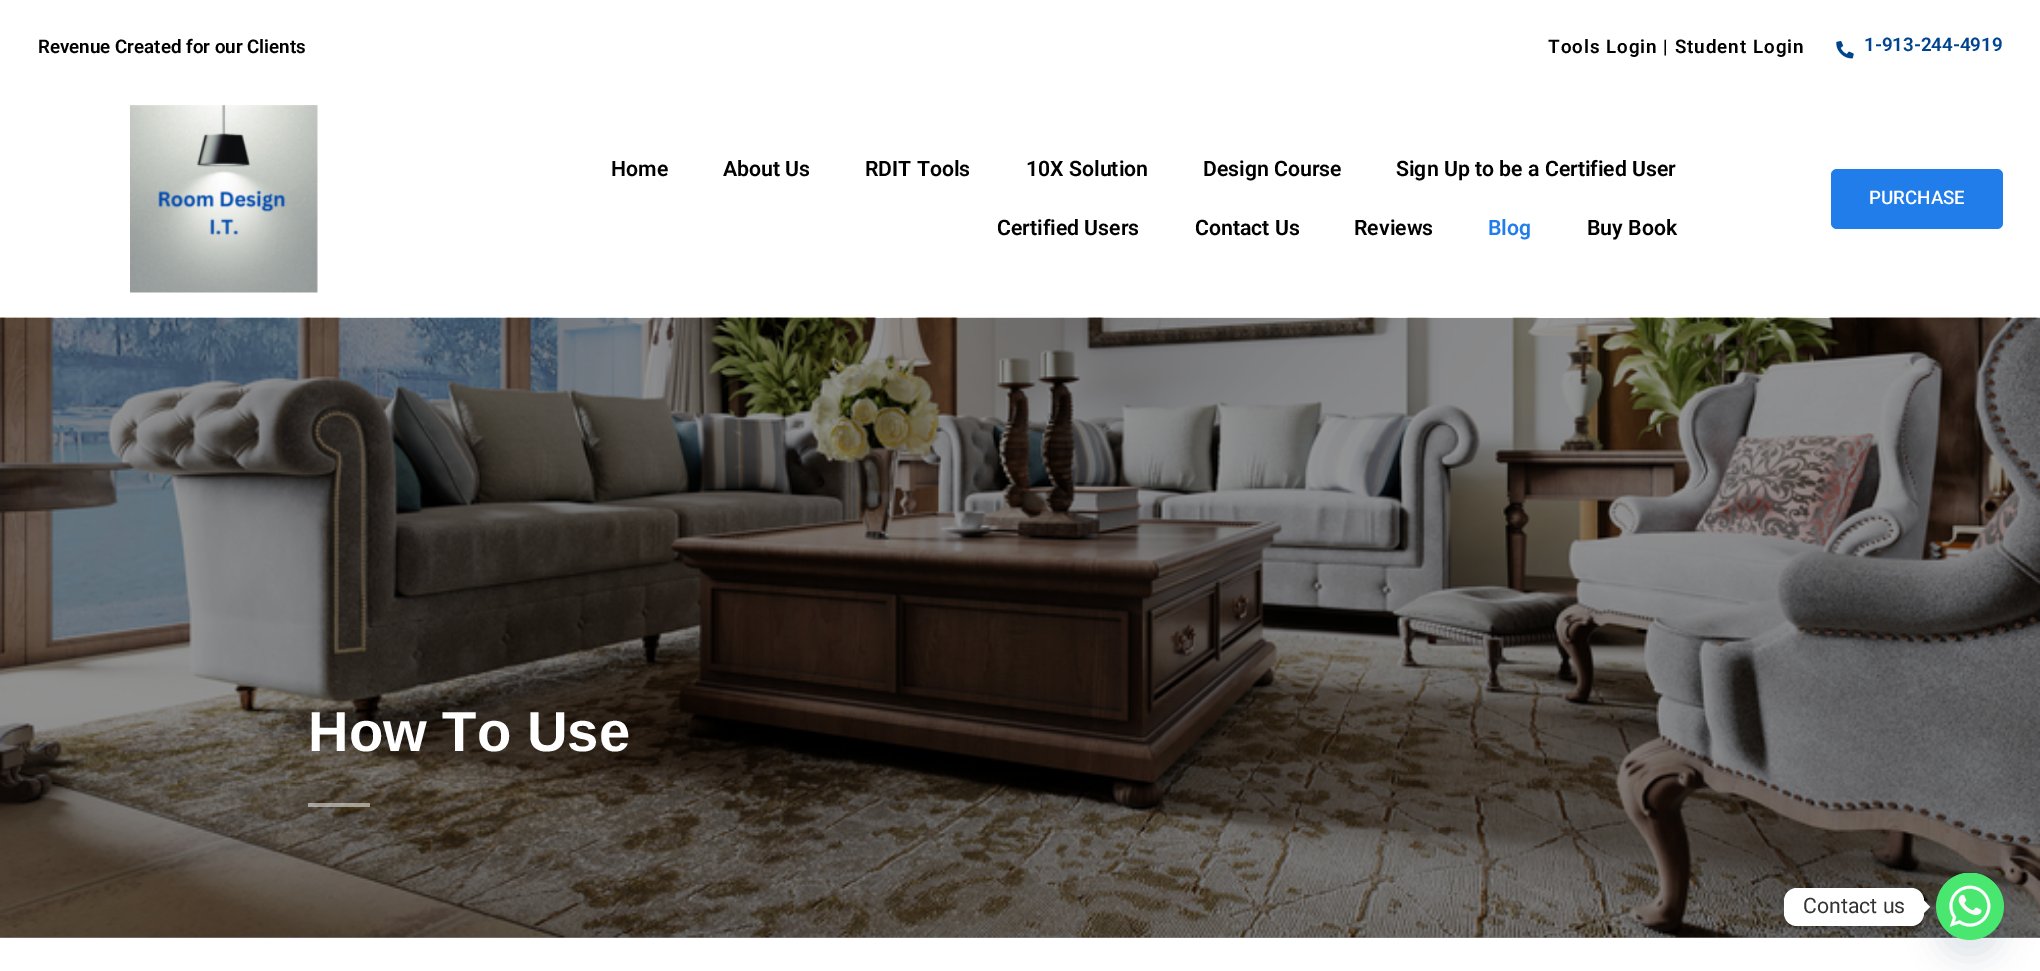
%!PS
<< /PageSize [2040 971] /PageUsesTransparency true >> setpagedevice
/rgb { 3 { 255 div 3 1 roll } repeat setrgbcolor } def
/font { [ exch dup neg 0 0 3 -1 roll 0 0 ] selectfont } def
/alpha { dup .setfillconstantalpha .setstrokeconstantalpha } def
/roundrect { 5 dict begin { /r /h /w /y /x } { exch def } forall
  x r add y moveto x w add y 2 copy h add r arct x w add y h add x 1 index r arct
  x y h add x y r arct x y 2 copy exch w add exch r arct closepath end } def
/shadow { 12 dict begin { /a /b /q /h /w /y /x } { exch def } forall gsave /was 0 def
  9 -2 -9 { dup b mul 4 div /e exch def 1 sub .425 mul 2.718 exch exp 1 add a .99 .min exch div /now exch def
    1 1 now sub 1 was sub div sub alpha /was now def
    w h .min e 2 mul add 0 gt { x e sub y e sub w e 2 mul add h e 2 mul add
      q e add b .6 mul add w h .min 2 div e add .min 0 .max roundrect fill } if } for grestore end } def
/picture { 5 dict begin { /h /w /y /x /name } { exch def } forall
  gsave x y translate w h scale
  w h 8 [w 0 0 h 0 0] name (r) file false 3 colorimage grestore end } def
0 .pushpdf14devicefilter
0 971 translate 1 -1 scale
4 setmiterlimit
255 255 255 rgb
0 0 2040 971 rectfill
148 148 148 rgb
0 937 2040 1 rectfill
(img/1.rgb) 1836 41 18 18 picture
(img/2.rgb) 130 105 188 188 picture
32 125 233 rgb
1831 169 172 60 6 roundrect fill
(img/3.rgb) 0 317 2040 621 picture
0.5 alpha
255 255 255 rgb
308 803 62 4 rectfill
1 alpha
73 104 126 rgb
1936 893 68 67 33.5 15 0.16 shadow
73 230 112 rgb
1936 873 68 67 33.5 roundrect fill
(img/4.rgb) 1936 873 68 67 picture
0 0 0 rgb
1784 889 140 39 13 5 0.15 shadow
255 255 255 rgb
1784 888 140 38 13 roundrect fill
1924 913 moveto 1924 900.5 lineto 1930 907 lineto closepath fill
/Roboto-SemiBold 18.75 font
0 0 0 rgb
38 53 moveto (Revenue Created for our Clients) show
1548 53 moveto 1 0 (Tools Login | Student Login) ashow
0 68 143 rgb
1864 51 moveto (1-913-244-4919) show
/Roboto-SemiBold 21.25 font
0 0 0 rgb
[
  [(Home) 611 176]
  [(About Us) 723 176]
  [(RDIT Tools) 865 176]
  [(10X Solution) 1026 176]
  [(Design Course) 1203 176]
  [(Sign Up to be a Certified User) 1396 176]
  [(Certified Users) 997 235]
  [(Contact Us) 1195 235]
  [(Reviews) 1354 235]
] { aload pop moveto show } forall
32 125 233 rgb
1488 235 moveto (Blog) show
0 0 0 rgb
1587 235 moveto (Buy Book) show
/Roboto-Medium 18.75 font
255 255 255 rgb
1869 204 moveto (PURCHASE) show
/LiberationSans-Bold 56.25 font
308 751 moveto (How To Use) show
/Roboto-Regular 21.25 font
51 51 51 rgb
1803 913 moveto (Contact us) show
.poppdf14devicefilter showpage
